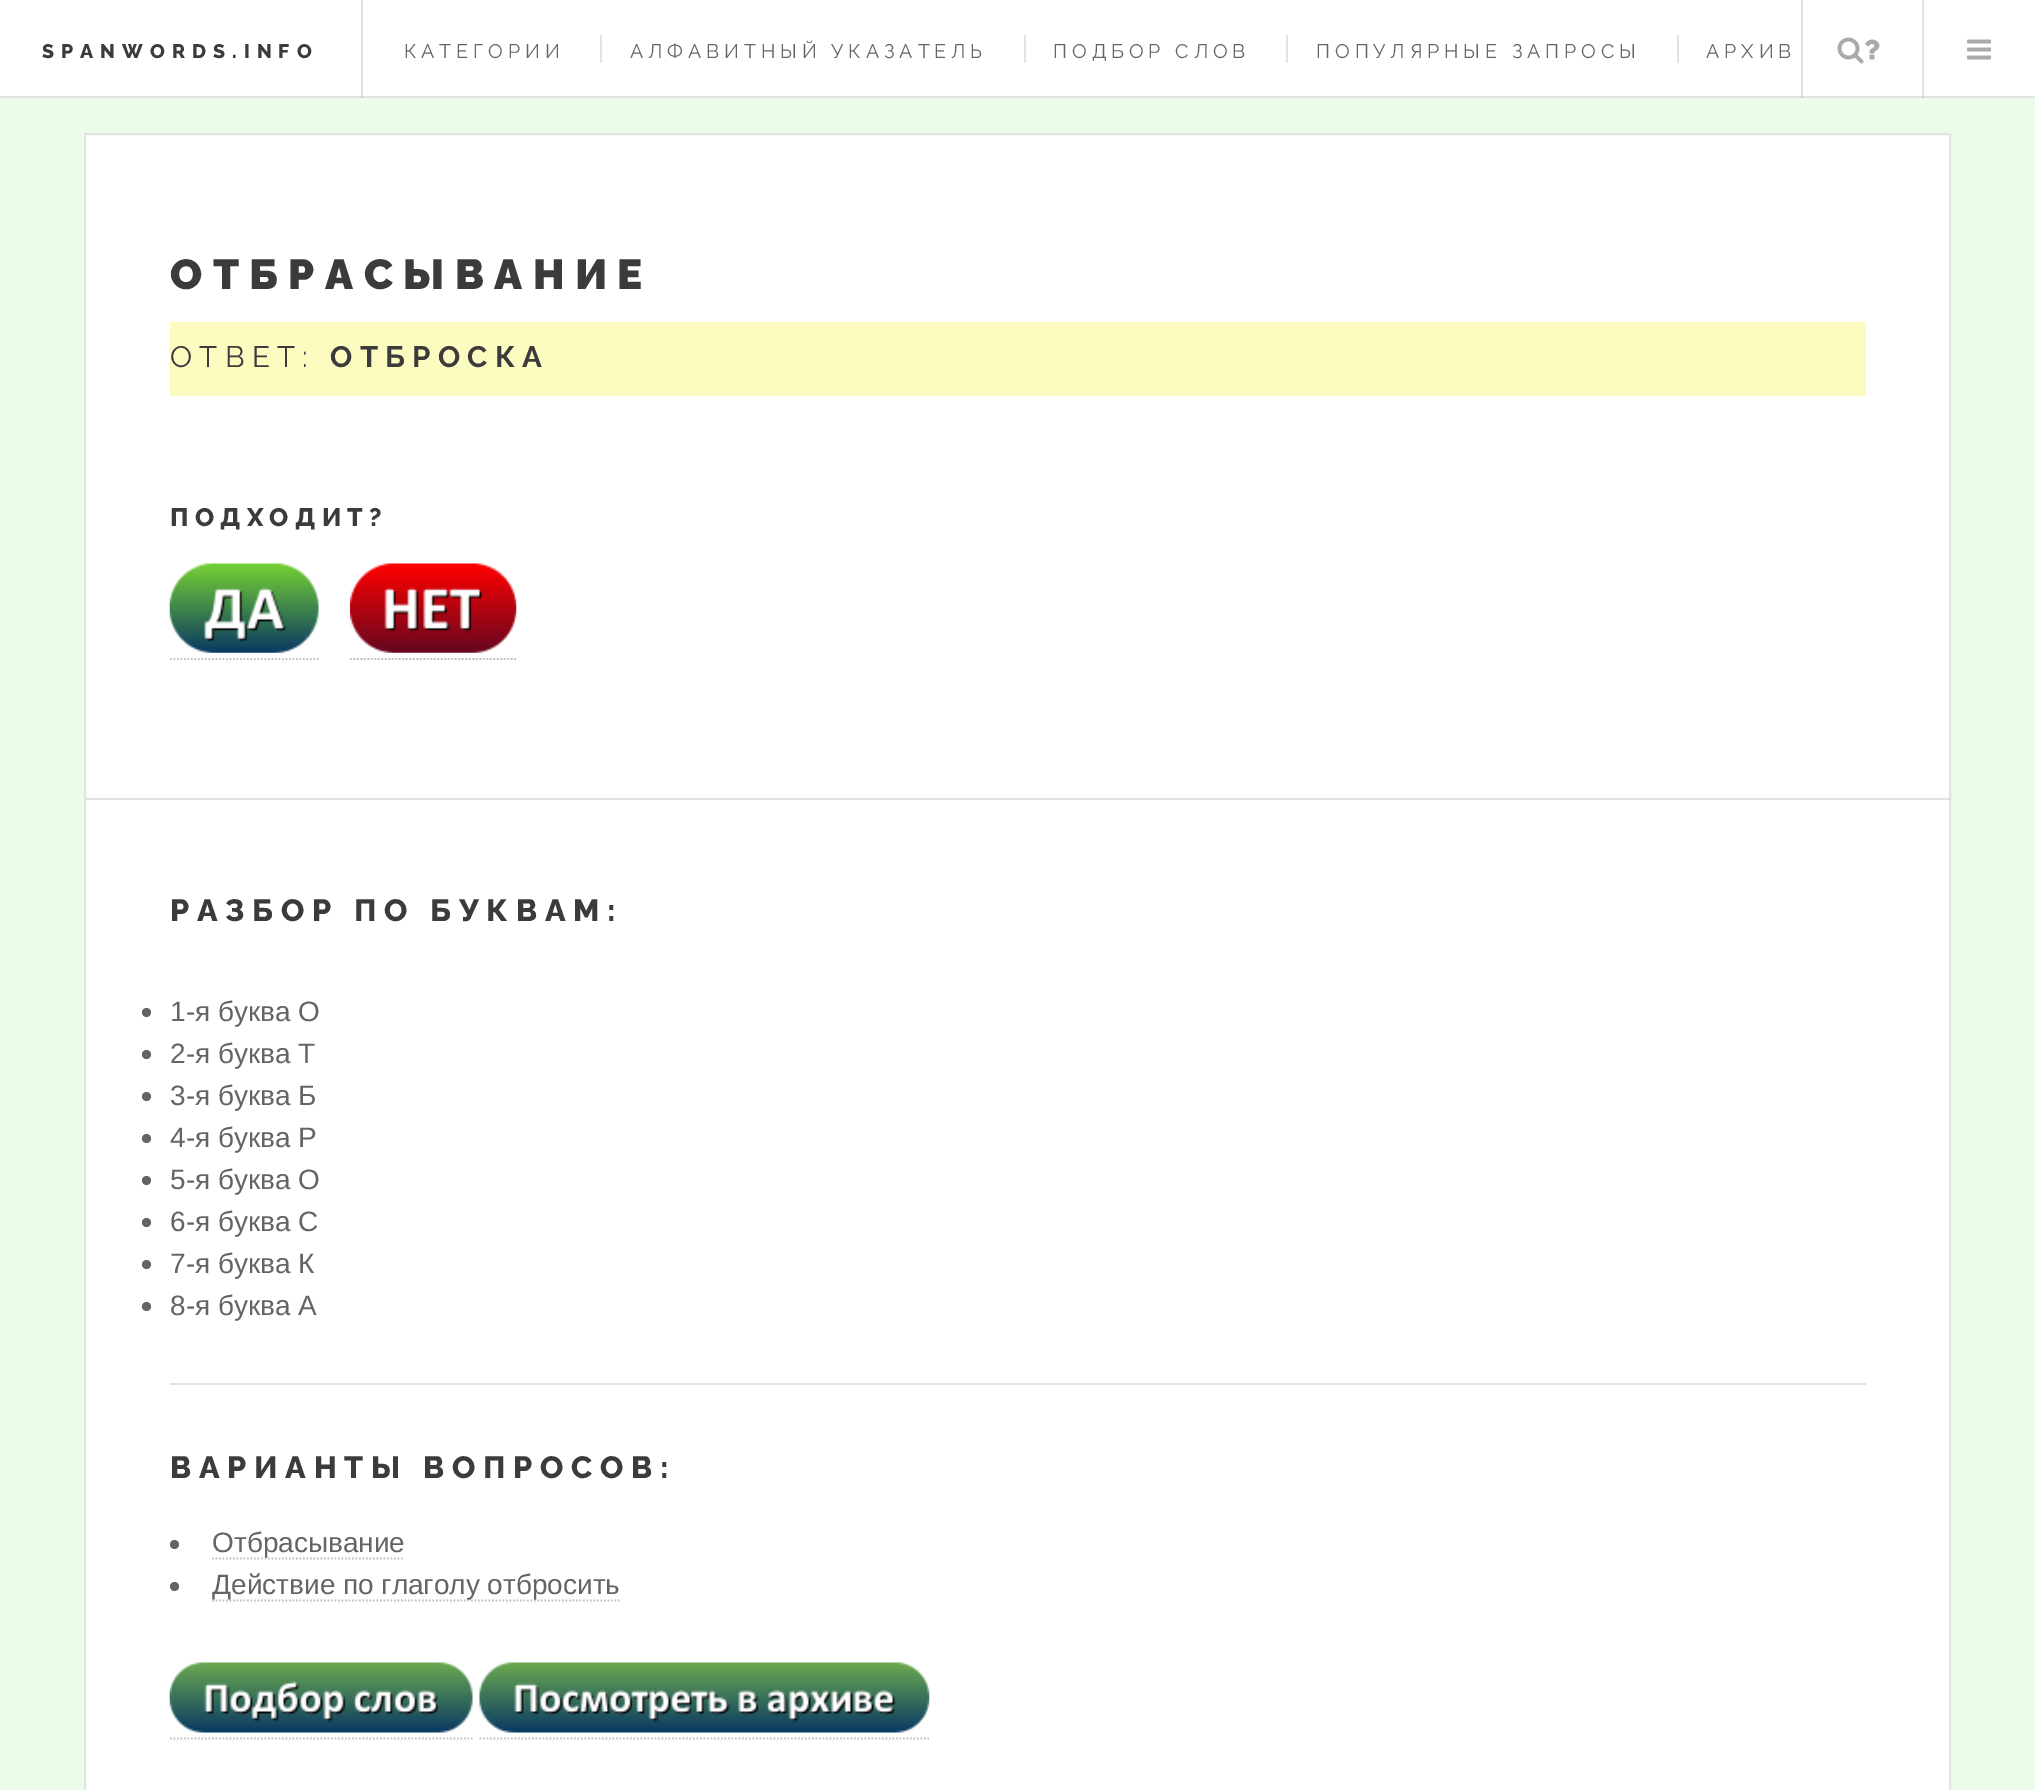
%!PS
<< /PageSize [2035 1790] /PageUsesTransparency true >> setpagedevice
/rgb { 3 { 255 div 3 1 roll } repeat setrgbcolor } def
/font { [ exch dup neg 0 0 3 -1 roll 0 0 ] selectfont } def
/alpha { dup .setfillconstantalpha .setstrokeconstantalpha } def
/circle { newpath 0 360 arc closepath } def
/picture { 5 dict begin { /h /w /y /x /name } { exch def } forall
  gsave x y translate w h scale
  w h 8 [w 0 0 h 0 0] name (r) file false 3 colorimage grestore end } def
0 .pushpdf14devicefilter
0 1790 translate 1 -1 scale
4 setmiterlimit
235 252 235 rgb
0 0 2035 1790 rectfill
[
  [0 0 2035 96 255 255 255]
  [361 0 2 98 227 227 227]
  [1922 0 2 98 227 227 227]
  [1801 0 2 98 227 227 227]
  [0 96 2035 2 227 227 227]
  [361 96 2 2 207 207 207]
  [1922 96 2 2 207 207 207]
  [1801 96 2 2 207 207 207]
  [600 35 2 28 227 227 227]
  [1024 35 2 28 227 227 227]
  [1286 35 2 28 227 227 227]
  [1677 35 2 28 227 227 227]
] { aload pop rgb rectfill } forall
(img/1.rgb) 1837 37 43 27 picture
(img/2.rgb) 1967 39 24 21 picture
255 255 255 rgb
85 134 moveto 1950 134 lineto 1950 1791 lineto 85 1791 lineto closepath gsave fill grestore
227 227 227 rgb
2 setlinewidth
stroke
0.3 alpha
160 160 160 rgb
86 798 1864 2 rectfill
1 alpha
252 251 192 rgb
170 322 1696 74 rectfill
(img/3.rgb) 169 563 150 90 picture
(img/4.rgb) 350 563 167 90 picture
193 193 193 rgb
1.8 setlinewidth
[1.75 1.75] 0 setdash
170 659 moveto 318.5 659 lineto stroke
350 659 moveto 516 659 lineto stroke
100 100 100 rgb
146.5 1012.5 4.5 circle fill
146.5 1054.5 4.5 circle fill
146.5 1096.5 4.5 circle fill
146.5 1138.5 4.5 circle fill
146.5 1180.5 4.5 circle fill
146.5 1222.5 4.5 circle fill
146.5 1264.5 4.5 circle fill
146.5 1306.5 4.5 circle fill
227 227 227 rgb
170 1383 1696 2 rectfill
100 100 100 rgb
174.5 1544.5 4.5 circle fill
193 193 193 rgb
212 1558.5 moveto 404 1558.5 lineto stroke
100 100 100 rgb
174.5 1586.5 4.5 circle fill
193 193 193 rgb
212 1600.5 moveto 619.5 1600.5 lineto stroke
(img/5.rgb) 169 1662 304 71 picture
(img/6.rgb) 479 1662 451 71 picture
170 1738.5 moveto 472.5 1738.5 lineto stroke
479.5 1738.5 moveto 929 1738.5 lineto stroke
/Raleway-ExtraBold 19.6 font
60 59 59 rgb
42 58 moveto 7 0 (SPANWORDS.INFO) ashow
/Raleway-Regular 19.6 font
100 100 100 rgb
404 58 moveto 4.9 0 (КАТЕГОРИИ) ashow
630 58 moveto 4.9 0 (АЛФАВИТНЫЙ УКАЗАТЕЛЬ) ashow
1053 58 moveto 4.9 0 (ПОДБОР СЛОВ) ashow
1316 58 moveto 4.9 0 (ПОПУЛЯРНЫЕ ЗАПРОСЫ) ashow
1706 58 moveto 4.9 0 (АРХИВ) ashow
/Raleway-Black 42 font
60 59 59 rgb
170 289 moveto 10.5 0 (ОТБРАСЫВАНИЕ) ashow
/Raleway-Regular 29.5 font
170 367 moveto 7.25 0 (ОТВЕТ:) ashow
/Raleway-Bold 29.5 font
330 367 moveto 7.25 0 (ОТБРОСКА) ashow
/Raleway-ExtraBold 25.25 font
170 526 moveto 6.25 0 (ПОДХОДИТ?) ashow
/Raleway-ExtraBold 30.75 font
170 921 moveto 7.75 0 (РАЗБОР ПО БУКВАМ:) ashow
/LiberationSans-Regular 28 font
100 100 100 rgb
[
  [(1-я буква О) 170 1021]
  [(2-я буква Т) 170 1063]
  [(3-я буква Б) 170 1105]
  [(4-я буква Р) 170 1147]
  [(5-я буква О) 170 1189]
  [(6-я буква С) 170 1231]
  [(7-я буква К) 170 1273]
  [(8-я буква А) 170 1315]
] { aload pop moveto show } forall
/Raleway-ExtraBold 30.75 font
60 59 59 rgb
170 1478 moveto 7.75 0 (ВАРИАНТЫ ВОПРОСОВ:) ashow
/LiberationSans-Regular 28 font
100 100 100 rgb
212 1552 moveto (Отбрасывание) show
212 1594 moveto (Действие по глаголу отбросить) show
.poppdf14devicefilter showpage
